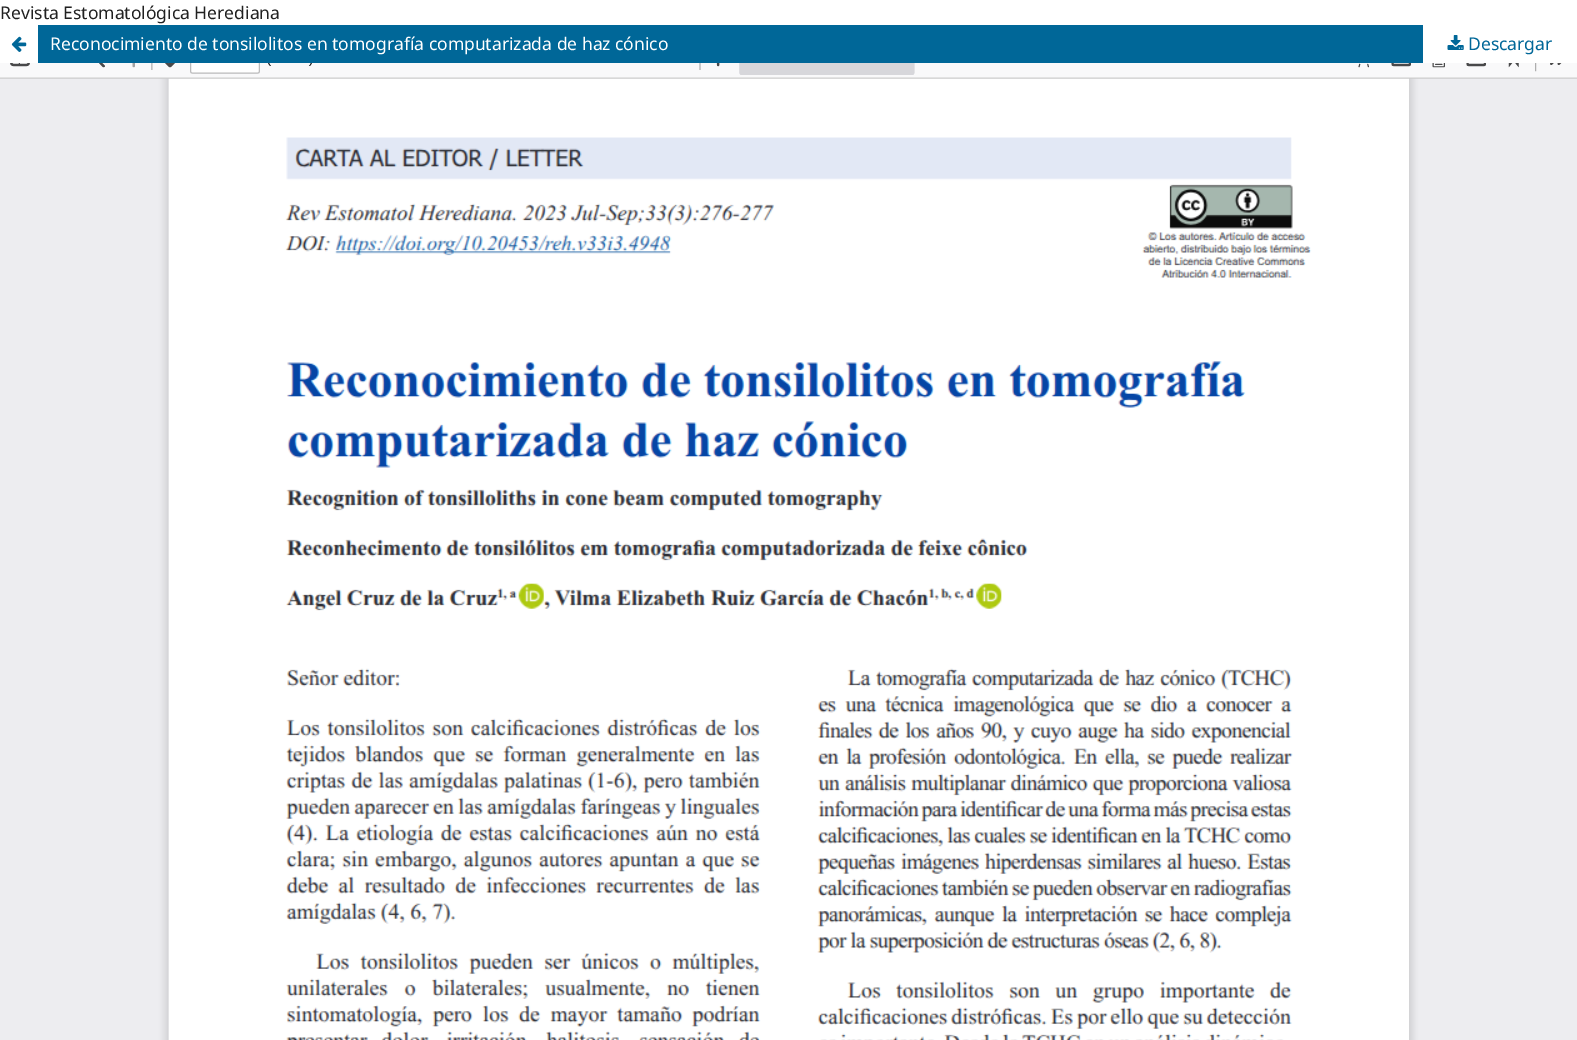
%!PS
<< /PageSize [1577 1040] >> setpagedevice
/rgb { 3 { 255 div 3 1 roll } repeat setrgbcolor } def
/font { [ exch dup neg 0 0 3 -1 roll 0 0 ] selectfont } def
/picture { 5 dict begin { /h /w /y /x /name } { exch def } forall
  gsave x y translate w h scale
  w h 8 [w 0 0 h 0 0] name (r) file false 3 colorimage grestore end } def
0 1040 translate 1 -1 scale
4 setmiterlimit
255 255 255 rgb
0 0 1577 1040 rectfill
0 103 152 rgb
38 25 1385 38 rectfill
(img/1.rgb) 11 36 16 16 picture
(img/2.rgb) 1447 35 17 15 picture
(img/3.rgb) 0 63 1577 977 picture
/NotoSans-Regular 17.5 font
33 33 33 rgb
0 19 moveto (Revista Estomatológica Herediana) show
255 255 255 rgb
50 50 moveto (Reconocimiento de tonsilolitos en tomografía computarizada de haz cónico) show
0 103 152 rgb
1468 50 moveto (Descargar) show
showpage
